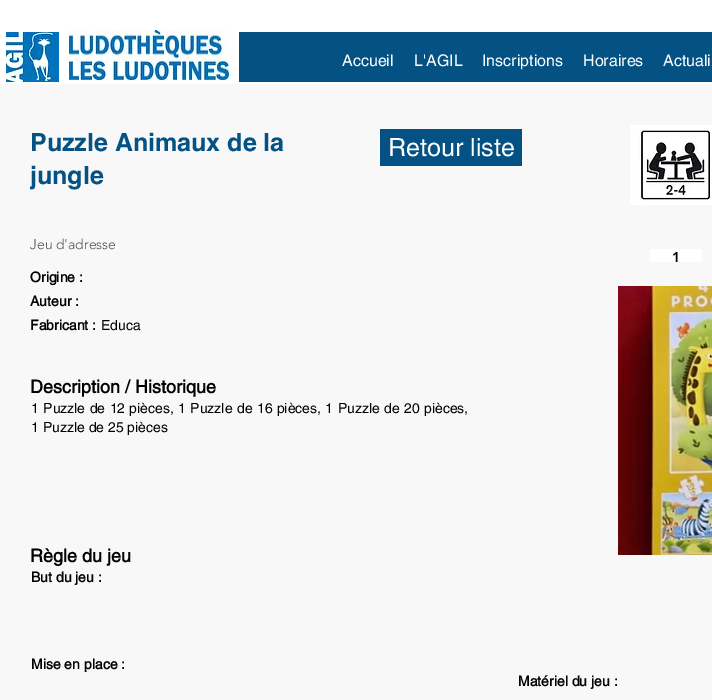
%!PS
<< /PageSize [712 700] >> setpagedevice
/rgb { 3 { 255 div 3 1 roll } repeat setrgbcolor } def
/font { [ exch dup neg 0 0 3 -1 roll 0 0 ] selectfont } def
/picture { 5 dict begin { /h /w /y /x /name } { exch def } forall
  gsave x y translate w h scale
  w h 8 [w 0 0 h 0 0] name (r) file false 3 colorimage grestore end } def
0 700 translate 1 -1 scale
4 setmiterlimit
248 248 248 rgb
0 0 712 700 rectfill
255 255 255 rgb
0 0 712 84 rectfill
(img/1.rgb) 6 32 53 50 picture
(img/2.rgb) 69 30 160 50 picture
4 81 132 rgb
239 32 473 50 rectfill
380 129 142 37 rectfill
(img/3.rgb) 630 125 82 80 picture
255 255 255 rgb
650 249 52 13 rectfill
(img/4.rgb) 618 286 94 269 picture
/helvetica-Regular 16 font
[
  [(Accueil) 342 66]
  [(L'AGIL) 414 66]
  [(Inscriptions) 482 66]
  [(Horaires) 583 66]
  [(Actuali) 663 66]
] { aload pop moveto show } forall
/helvetica-Bold 25 font
4 81 132 rgb
30 151 moveto (Puzzle Animaux de la) show
30 184 moveto (jungle) show
/helvetica-Regular 25 font
255 255 255 rgb
388 156 moveto (Retour liste) show
/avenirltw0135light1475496-Light 14 font
84 84 84 rgb
30 249 moveto (Jeu d'adresse) show
/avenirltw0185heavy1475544-Black 14 font
0 0 0 rgb
672 262 moveto (1) show
/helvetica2-Bold 14 font
[
  [(Origine :) 30 282]
  [(Auteur :) 30 306]
  [(Fabricant :) 30 330]
] { aload pop moveto show } forall
/helvetica-Regular 14 font
101 330 moveto (Educa) show
/helvetica2-Bold 18 font
30 393 moveto (Description / Historique) show
/helvetica-Regular 14 font
31 413 moveto 0.5 0 32 (1 Puzzle de 12 pièces, 1 Puzzle de 16 pièces, 1 Puzzle de 20 pièces,) widthshow
31 432 moveto (1 Puzzle de 25 pièces) show
/helvetica2-Bold 18 font
30 562 moveto (Règle du jeu) show
/helvetica2-Bold 14 font
[
  [(But du jeu :) 31 582]
  [(Mise en place :) 31 669]
  [(Matériel du jeu :) 518 686]
] { aload pop moveto show } forall
showpage
